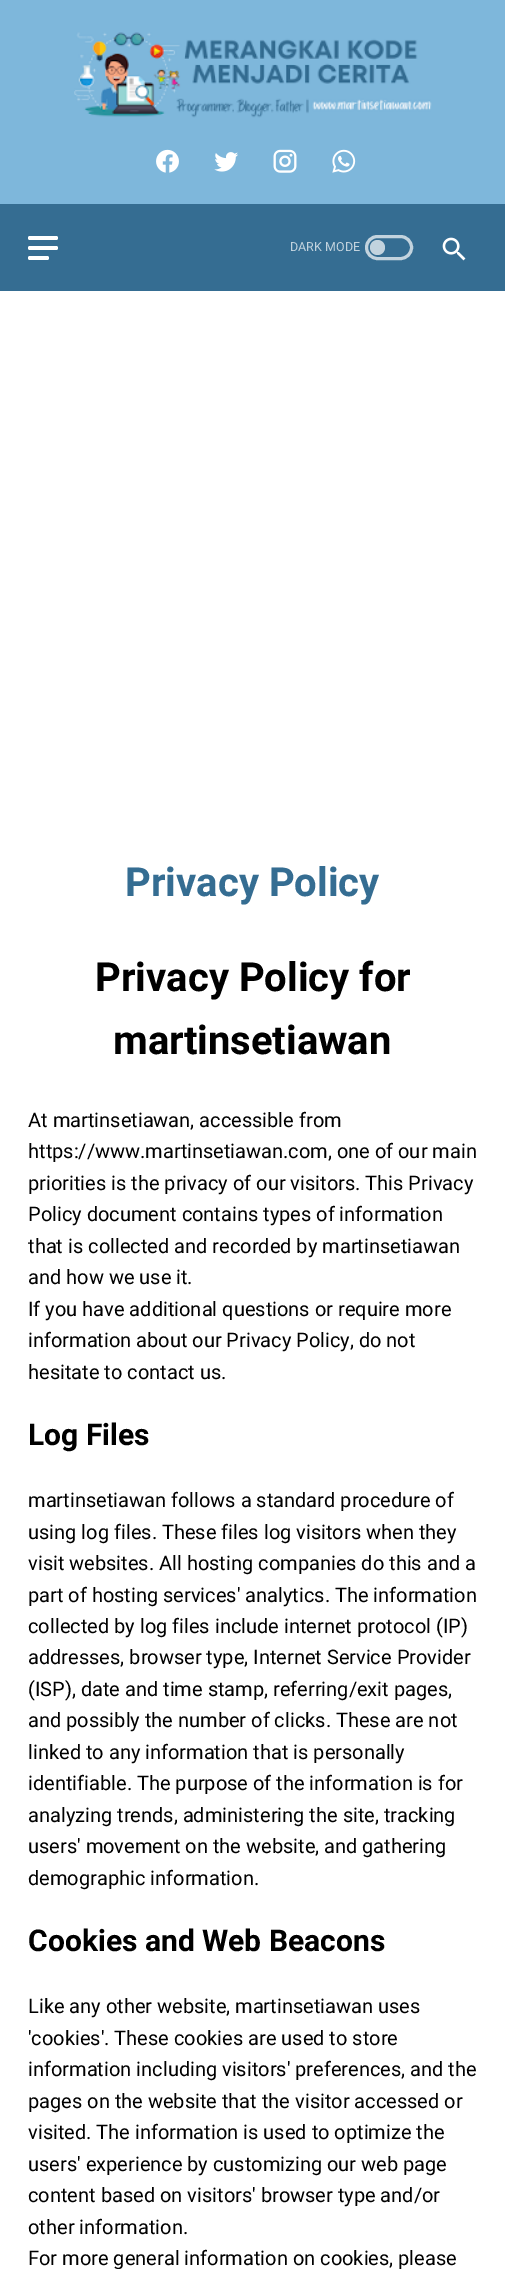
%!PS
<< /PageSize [505 2269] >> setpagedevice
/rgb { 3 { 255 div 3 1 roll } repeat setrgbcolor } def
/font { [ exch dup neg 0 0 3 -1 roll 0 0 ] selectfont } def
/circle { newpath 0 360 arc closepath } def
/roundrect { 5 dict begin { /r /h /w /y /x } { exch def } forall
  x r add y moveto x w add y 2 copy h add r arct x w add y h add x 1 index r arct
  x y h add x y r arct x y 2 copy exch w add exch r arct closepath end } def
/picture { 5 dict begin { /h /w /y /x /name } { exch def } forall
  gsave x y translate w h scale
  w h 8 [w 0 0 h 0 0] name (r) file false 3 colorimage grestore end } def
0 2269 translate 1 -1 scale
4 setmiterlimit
126 183 219 rgb
0 0 505 2269 rectfill
(img/1.rgb) 74 32 358 86 picture
(img/2.rgb) 156 149 23 24 picture
(img/3.rgb) 214 152 24 20 picture
(img/4.rgb) 273 149 24 24 picture
(img/5.rgb) 332 149 24 24 picture
53 109 146 rgb
0 204 505 87 rectfill
255 255 255 rgb
28 236 30 4 2 roundrect fill
28 246 30 4 2 roundrect fill
28 256 21 4 2 roundrect fill
194 211 222 rgb
3 setlinewidth
366.5 236.5 45 22 11 roundrect stroke
377.5 247.5 7.5 circle fill
(img/6.rgb) 442 237 24 24 picture
255 255 255 rgb
0 291 505 1978 rectfill
/Roboto-Regular 12.5 font
194 211 222 rgb
290 251 moveto (DARK MODE) show
/Roboto-Bold 40 font
53 109 146 rgb
125 896 moveto (Privacy Policy) show
0 0 0 rgb
95 991 moveto (Privacy Policy for) show
113 1054 moveto (martinsetiawan) show
/Roboto-Regular 20 font
[
  [(At martinsetiawan, accessible from) 28 1127]
  [(https://www.martinsetiawan.com, one of our main) 28 1158]
  [(priorities is the privacy of our visitors. This Privacy) 28 1190]
  [(Policy document contains types of information) 28 1221]
  [(that is collected and recorded by martinsetiawan) 28 1253]
  [(and how we use it.) 28 1284]
  [(If you have additional questions or require more) 28 1316]
  [(information about our Privacy Policy, do not) 28 1347]
  [(hesitate to contact us.) 28 1379]
] { aload pop moveto show } forall
/Roboto-Bold 30 font
28 1445 moveto (Log Files) show
/Roboto-Regular 20 font
[
  [(martinsetiawan follows a standard procedure of) 28 1507]
  [(using log files. These files log visitors when they) 28 1539]
  [(visit websites. All hosting companies do this and a) 28 1570]
  [(part of hosting services' analytics. The information) 28 1602]
  [(collected by log files include internet protocol \(IP\)) 28 1633]
  [(addresses, browser type, Internet Service Provider) 28 1664]
  [(\(ISP\), date and time stamp, referring/exit pages,) 28 1696]
  [(and possibly the number of clicks. These are not) 28 1727]
  [(linked to any information that is personally) 28 1759]
  [(identifiable. The purpose of the information is for) 28 1790]
  [(analyzing trends, administering the site, tracking) 28 1822]
  [(users' movement on the website, and gathering) 28 1853]
  [(demographic information.) 28 1885]
] { aload pop moveto show } forall
/Roboto-Bold 30 font
28 1951 moveto (Cookies and Web Beacons) show
/Roboto-Regular 20 font
[
  [(Like any other website, martinsetiawan uses) 28 2013]
  [('cookies'. These cookies are used to store) 28 2045]
  [(information including visitors' preferences, and the) 28 2076]
  [(pages on the website that the visitor accessed or) 28 2108]
  [(visited. The information is used to optimize the) 28 2139]
  [(users' experience by customizing our web page) 28 2171]
  [(content based on visitors' browser type and/or) 28 2202]
  [(other information.) 28 2234]
  [(For more general information on cookies, please) 28 2265]
] { aload pop moveto show } forall
showpage
